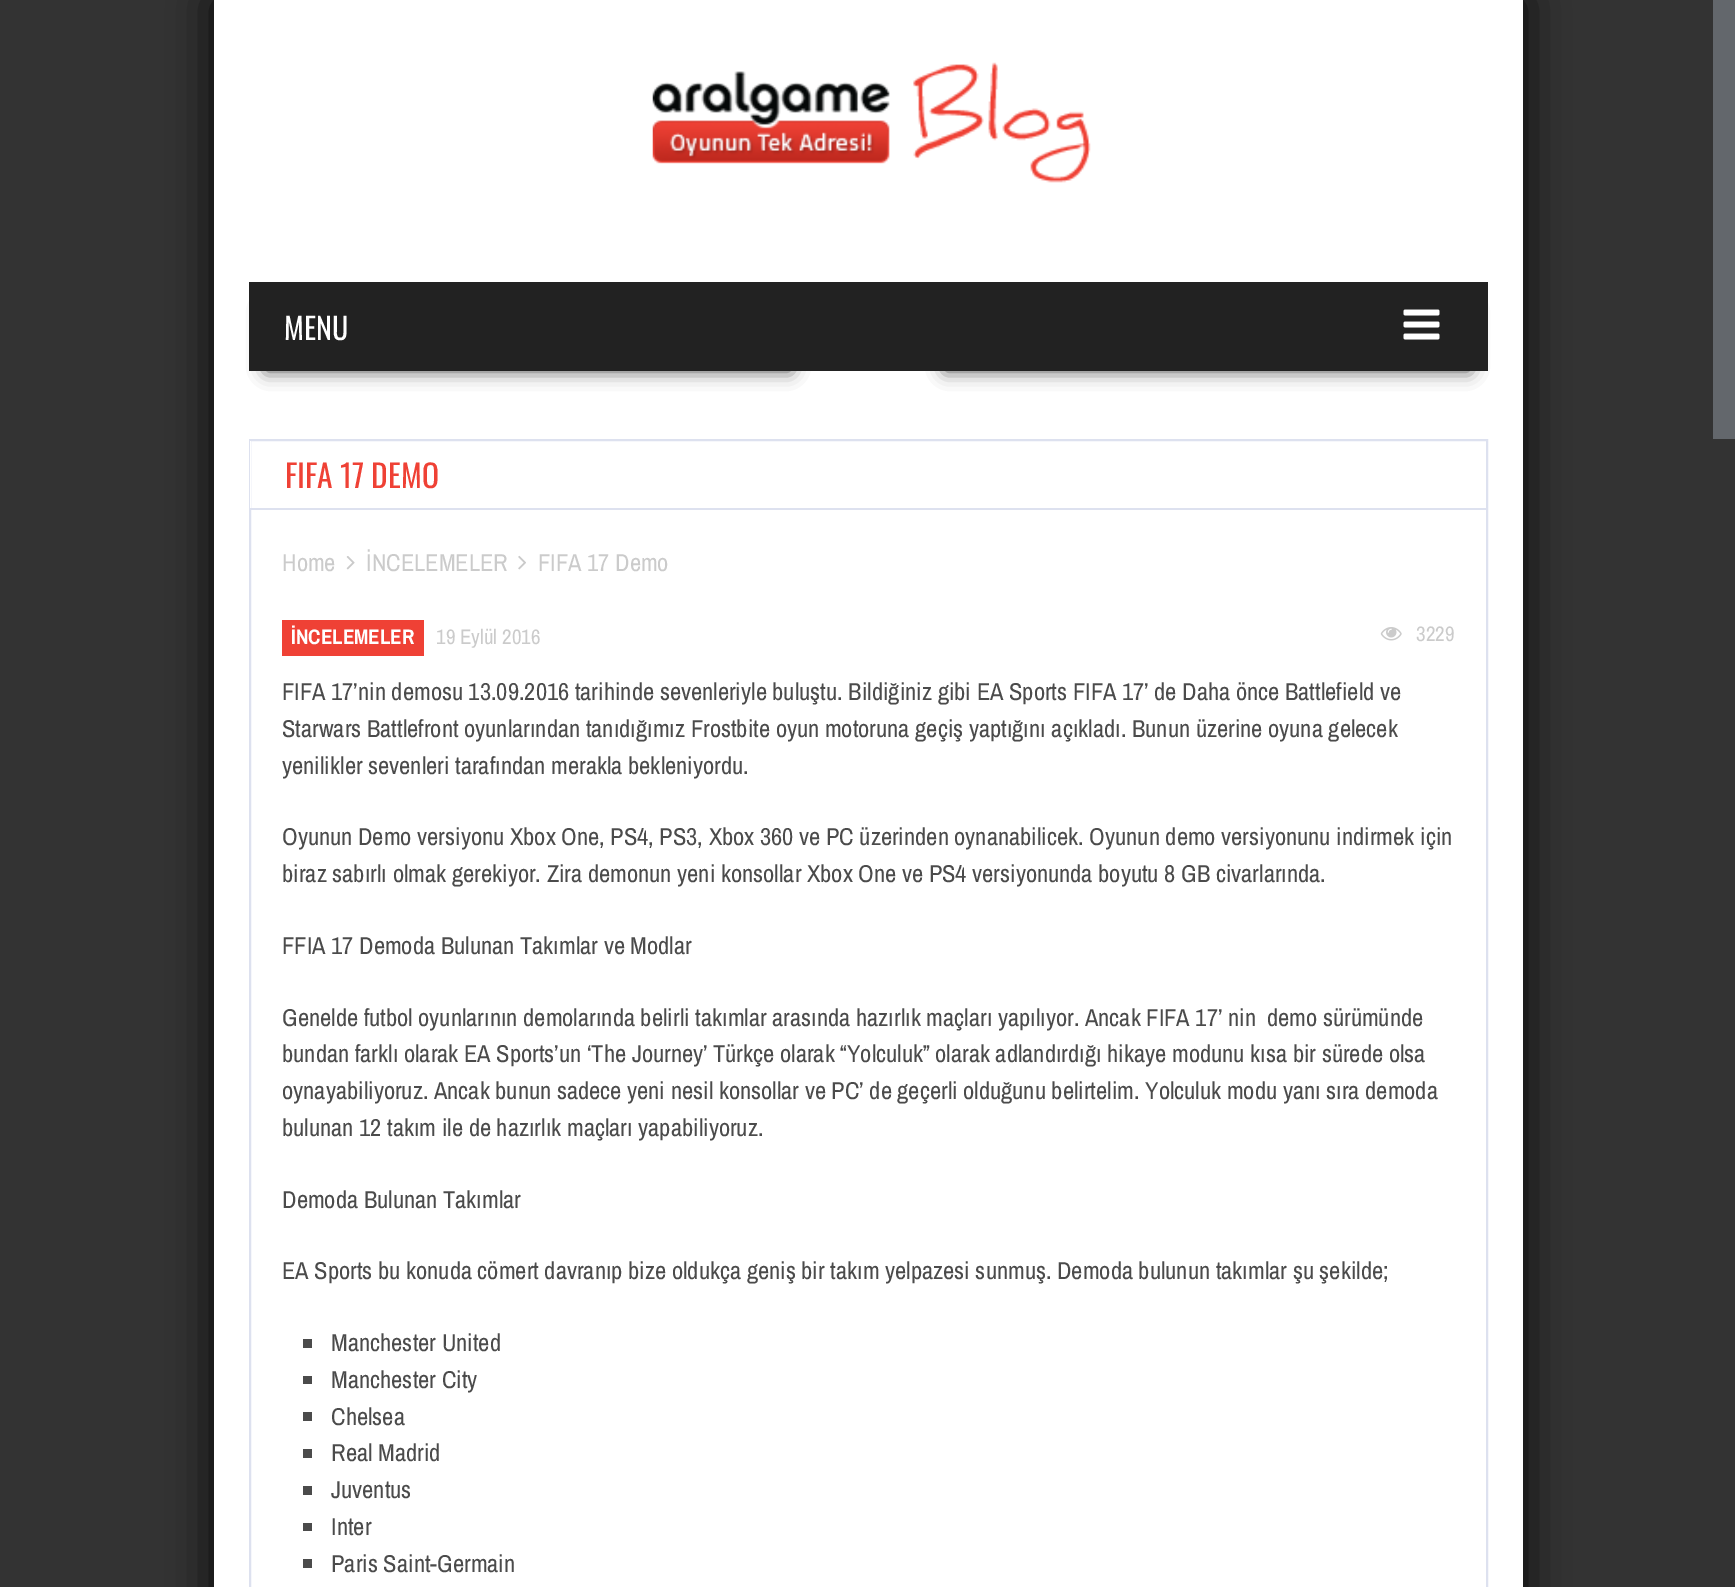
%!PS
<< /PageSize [1735 1587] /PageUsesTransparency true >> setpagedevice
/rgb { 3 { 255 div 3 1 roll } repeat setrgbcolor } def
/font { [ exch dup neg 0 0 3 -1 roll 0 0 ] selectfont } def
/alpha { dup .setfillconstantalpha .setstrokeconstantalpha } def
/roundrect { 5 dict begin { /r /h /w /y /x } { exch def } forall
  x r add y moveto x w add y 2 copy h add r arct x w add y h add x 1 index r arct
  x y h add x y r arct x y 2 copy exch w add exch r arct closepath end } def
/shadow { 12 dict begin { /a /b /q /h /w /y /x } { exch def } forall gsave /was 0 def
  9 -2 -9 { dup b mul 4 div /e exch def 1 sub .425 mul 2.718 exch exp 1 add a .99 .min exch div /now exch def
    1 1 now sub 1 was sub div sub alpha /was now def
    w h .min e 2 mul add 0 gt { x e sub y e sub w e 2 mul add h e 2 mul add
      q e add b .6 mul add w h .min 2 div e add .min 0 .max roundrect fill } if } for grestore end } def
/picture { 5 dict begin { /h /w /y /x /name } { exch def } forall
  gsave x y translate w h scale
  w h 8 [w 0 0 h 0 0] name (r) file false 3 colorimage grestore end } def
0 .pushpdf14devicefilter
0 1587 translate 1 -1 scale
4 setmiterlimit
51 51 51 rgb
0 0 1735 1587 rectfill
99 103 108 rgb
1713 0 22 439 rectfill
0 0 0 rgb
214 0 1309 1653 0 22 0.9 shadow
255 255 255 rgb
214 0 1309 1587 rectfill
(img/1.rgb) 652 62 439 121 picture
0 0 0 rgb
266 308 525 63 0 9 0.7 shadow
945 308 525 63 0 9 0.7 shadow
34 34 34 rgb
249 282 1239 89 rectfill
(img/2.rgb) 1403 309 37 31 picture
221 225 239 rgb
2 setlinewidth
250 440 1237 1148 rectstroke
255 255 255 rgb
250 441 1 67 rectfill
221 225 239 rgb
250 508 1236 2 rectfill
(img/3.rgb) 346 556 9 14 picture
(img/4.rgb) 518 555 8 15 picture
239 65 53 rgb
282 620 142 36 rectfill
(img/5.rgb) 1380 627 22 14 picture
[
  [303 1339 9 9 75 75 75]
  [303 1376 9 8 75 75 75]
  [303 1412 9 9 75 75 75]
  [303 1449 9 9 75 75 75]
  [303 1486 9 9 75 75 75]
  [303 1523 9 8 75 75 75]
  [303 1559 9 9 75 75 75]
] { aload pop rgb rectfill } forall
/Oswald-Regular 30 font
255 255 255 rgb
284 340 moveto (MENU) show
/Oswald-Regular 31.5 font
239 65 53 rgb
285 488 moveto (FIFA 17 DEMO) show
/ArchivoNarrow-Regular 24.5 font
203 203 203 rgb
[
  [(Home) 282 571]
  [(İNCELEMELER) 366 571]
  [(FIFA 17 Demo) 538 571]
] { aload pop moveto show } forall
/ArchivoNarrow-Bold 21 font
255 255 255 rgb
291 644 moveto (İNCELEMELER) show
/ArchivoNarrow-Regular 21 font
203 203 203 rgb
436 644 moveto (19 Eylül 2016) show
1416 641 moveto (3229) show
/ArchivoNarrow-Regular 24.5 font
75 75 75 rgb
[
  [(FIFA 17’nin demosu 13.09.2016 tarihinde sevenleriyle buluştu. Bildiğiniz gibi EA Sports FIFA 17’ de Daha önce Battlefield ve) 282 700]
  [(Starwars Battlefront oyunlarından tanıdığımız Frostbite oyun motoruna geçiş yaptığını açıkladı. Bunun üzerine oyuna gelecek) 282 737]
  [(yenilikler sevenleri tarafından merakla bekleniyordu.) 282 774]
  [(Oyunun Demo versiyonu Xbox One, PS4, PS3, Xbox 360 ve PC üzerinden oynanabilicek. Oyunun demo versiyonunu indirmek için) 282 845]
  [(biraz sabırlı olmak gerekiyor. Zira demonun yeni konsollar Xbox One ve PS4 versiyonunda boyutu 8 GB civarlarında.) 282 882]
  [(FFIA 17 Demoda Bulunan Takımlar ve Modlar) 282 954]
  [(Genelde futbol oyunlarının demolarında belirli takımlar arasında hazırlık maçları yapılıyor. Ancak FIFA 17’ nin  demo sürümünde) 282 1026]
  [(bundan farklı olarak EA Sports’un ‘The Journey’ Türkçe olarak “Yolculuk” olarak adlandırdığı hikaye modunu kısa bir sürede olsa) 282 1062]
  [(oynayabiliyoruz. Ancak bunun sadece yeni nesil konsollar ve PC’ de geçerli olduğunu belirtelim. Yolculuk modu yanı sıra demoda) 282 1099]
  [(bulunan 12 takım ile de hazırlık maçları yapabiliyoruz.) 282 1136]
  [(Demoda Bulunan Takımlar) 282 1208]
  [(EA Sports bu konuda cömert davranıp bize oldukça geniş bir takım yelpazesi sunmuş. Demoda bulunun takımlar şu şekilde;) 282 1279]
  [(Manchester United) 331 1351]
  [(Manchester City) 331 1388]
  [(Chelsea) 331 1425]
  [(Real Madrid) 331 1461]
  [(Juventus) 331 1498]
  [(Inter) 331 1535]
  [(Paris Saint-Germain) 331 1572]
] { aload pop moveto show } forall
.poppdf14devicefilter showpage
